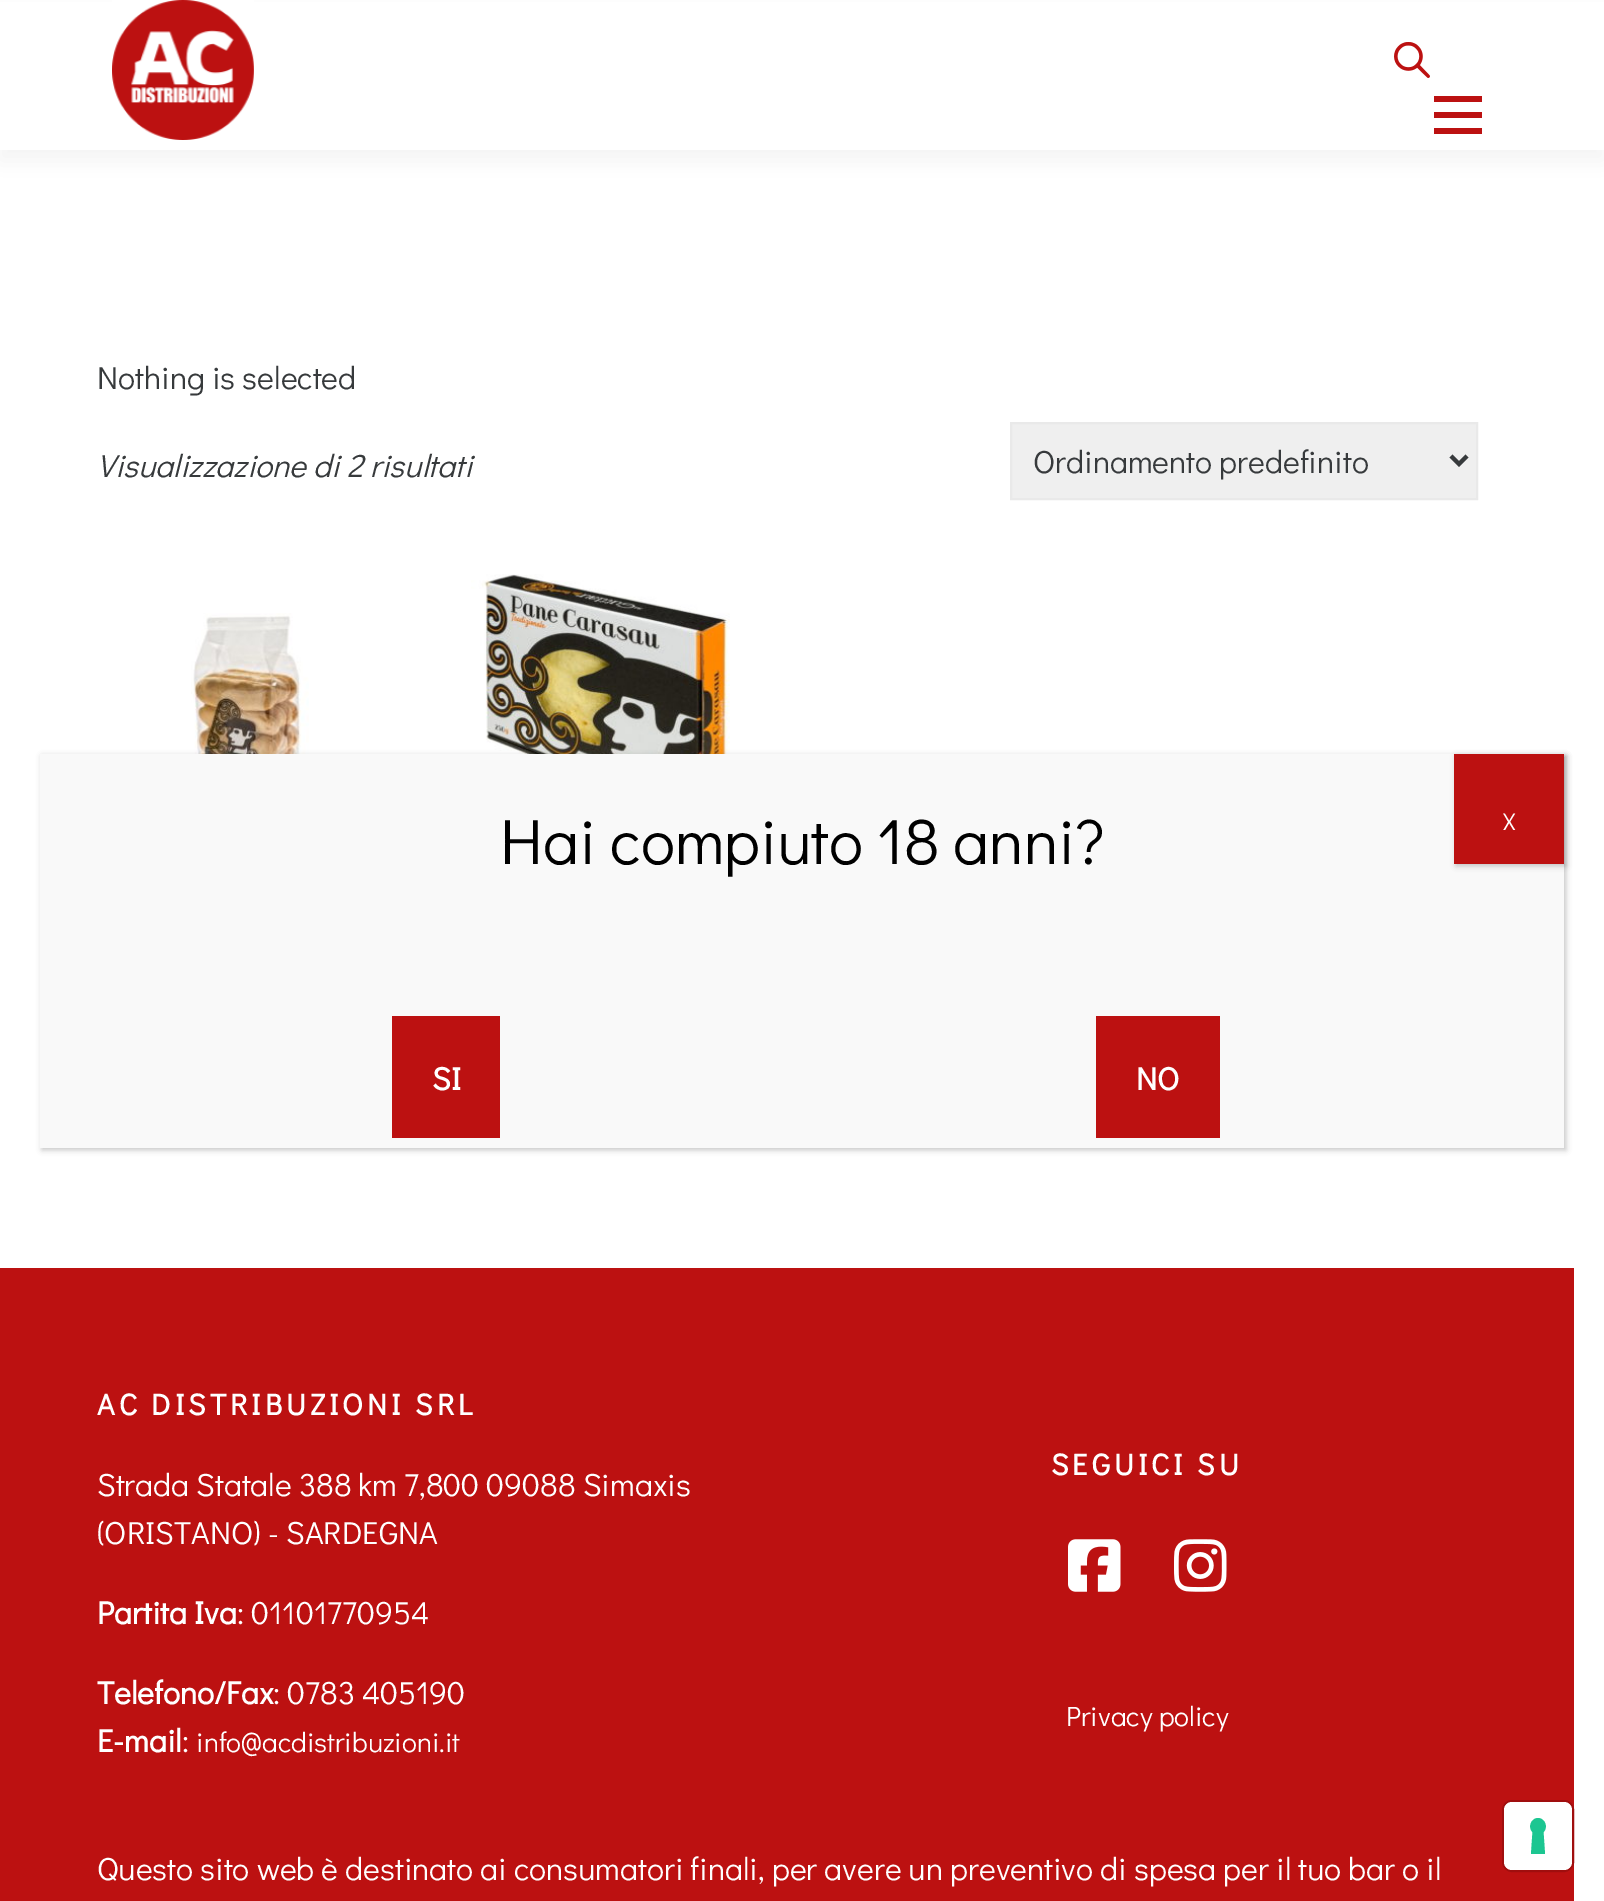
%!PS
<< /PageSize [1604 1901] /PageUsesTransparency true >> setpagedevice
/rgb { 3 { 255 div 3 1 roll } repeat setrgbcolor } def
/font { [ exch dup neg 0 0 3 -1 roll 0 0 ] selectfont } def
/alpha { dup .setfillconstantalpha .setstrokeconstantalpha } def
/roundrect { 5 dict begin { /r /h /w /y /x } { exch def } forall
  x r add y moveto x w add y 2 copy h add r arct x w add y h add x 1 index r arct
  x y h add x y r arct x y 2 copy exch w add exch r arct closepath end } def
/shadow { 12 dict begin { /a /b /q /h /w /y /x } { exch def } forall gsave /was 0 def
  9 -2 -9 { dup b mul 4 div /e exch def 1 sub .425 mul 2.718 exch exp 1 add a .99 .min exch div /now exch def
    1 1 now sub 1 was sub div sub alpha /was now def
    w h .min e 2 mul add 0 gt { x e sub y e sub w e 2 mul add h e 2 mul add
      q e add b .6 mul add w h .min 2 div e add .min 0 .max roundrect fill } if } for grestore end } def
/picture { 5 dict begin { /h /w /y /x /name } { exch def } forall
  gsave x y translate w h scale
  w h 8 [w 0 0 h 0 0] name (r) file false 3 colorimage grestore end } def
0 .pushpdf14devicefilter
0 1901 translate 1 -1 scale
4 setmiterlimit
255 255 255 rgb
0 0 1604 1901 rectfill
50 50 50 rgb
0 10 1604 150 0 10 0.06 shadow
255 255 255 rgb
0 2 1604 148 rectfill
(img/1.rgb) 112 0 142 140 picture
(img/2.rgb) 1394 42 36 36 picture
[
  [1434 112 48 6 188 17 17]
  [1434 96 48 6 188 17 17]
  [1434 128 48 6 188 17 17]
] { aload pop rgb rectfill } forall
239 239 239 rgb
1011 423 moveto 1477 423 lineto 1477 499 lineto 1011 499 lineto closepath gsave fill grestore
233 233 233 rgb
2 setlinewidth
stroke
55 58 60 rgb
4 setlinewidth
1451 456 moveto 1459 464 lineto 1467 456 lineto stroke
(img/3.rgb) 191 613 118 141 picture
(img/4.rgb) 471 574 259 180 picture
188 17 17 rgb
0 1268 1574 633 rectfill
(img/5.rgb) 1068 1539 53 53 picture
(img/6.rgb) 1174 1539 53 53 picture
2 2 2 rgb
42 756 1524 394 0 3 0.23 shadow
249 249 249 rgb
40 754 1524 394 rectfill
2 2 2 rgb
1456 756 110 110 0 3 0.23 shadow
[
  [1454 754 110 110 188 17 17]
  [392 1016 108 122 188 17 17]
  [1096 1016 124 122 188 17 17]
] { aload pop rgb rectfill } forall
160 14 14 rgb
2 setlinewidth
1503 1801 70 70 9 roundrect stroke
255 255 255 rgb
1504 1802 68 68 8 roundrect fill
28 198 145 rgb
1538 1818 moveto 1545 1818 1548.5 1827.5 1543.5 1832 curveto 1545 1854 lineto 1531 1854 lineto 1532.5 1832 lineto 1527.5 1827.5 1531 1818 1538 1818 curveto closepath eofill
/DidactGothic-Regular 32 font
55 58 60 rgb
97 389 moveto (Nothing is selected) show
/DidactGothic-Italic 32 font
97 477 moveto (Visualizzazione di 2 risultati) show
/DidactGothic-Regular 32 font
1033 473 moveto (Ordinamento predefinito) show
/DidactGothic-Bold 30 font
255 255 255 rgb
97 1415 moveto 4 0 (AC DISTRIBUZIONI SRL) ashow
/DidactGothic-Regular 32 font
97 1496 moveto (Strada Statale 388 km 7,800 09088 Simaxis) show
97 1544 moveto (\(ORISTANO\) - SARDEGNA) show
/DidactGothic-Bold 32 font
97 1624 moveto (Partita Iva) show
/DidactGothic-Regular 32 font
237 1624 moveto (: 01101770954) show
/DidactGothic-Bold 32 font
97 1704 moveto (Telefono/Fax) show
/DidactGothic-Regular 32 font
273 1704 moveto (: 0783 405190) show
/DidactGothic-Bold 32 font
97 1752 moveto (E-mail) show
/DidactGothic-Regular 32 font
182 1752 moveto (:) show
/DidactGothic-Regular 28 font
196 1752 moveto (info@acdistribuzioni.it) show
/DidactGothic-Bold 30 font
1051 1475 moveto 4 0 (SEGUICI SU) ashow
/DidactGothic-Regular 28 font
1066 1726 moveto (Privacy policy) show
/DidactGothic-Regular 32 font
97 1880 moveto (Questo sito web è destinato ai consumatori finali, per avere un preventivo di spesa per il tuo bar o il) show
/DidactGothic-Regular 64 font
0 0 0 rgb
500 864 moveto (Hai compiuto 18 anni?) show
/DidactGothic-Regular 24 font
255 255 255 rgb
1503 830 moveto (X) show
/DidactGothic-Bold 32 font
432 1090 moveto (SI) show
1136 1090 moveto (NO) show
.poppdf14devicefilter showpage
